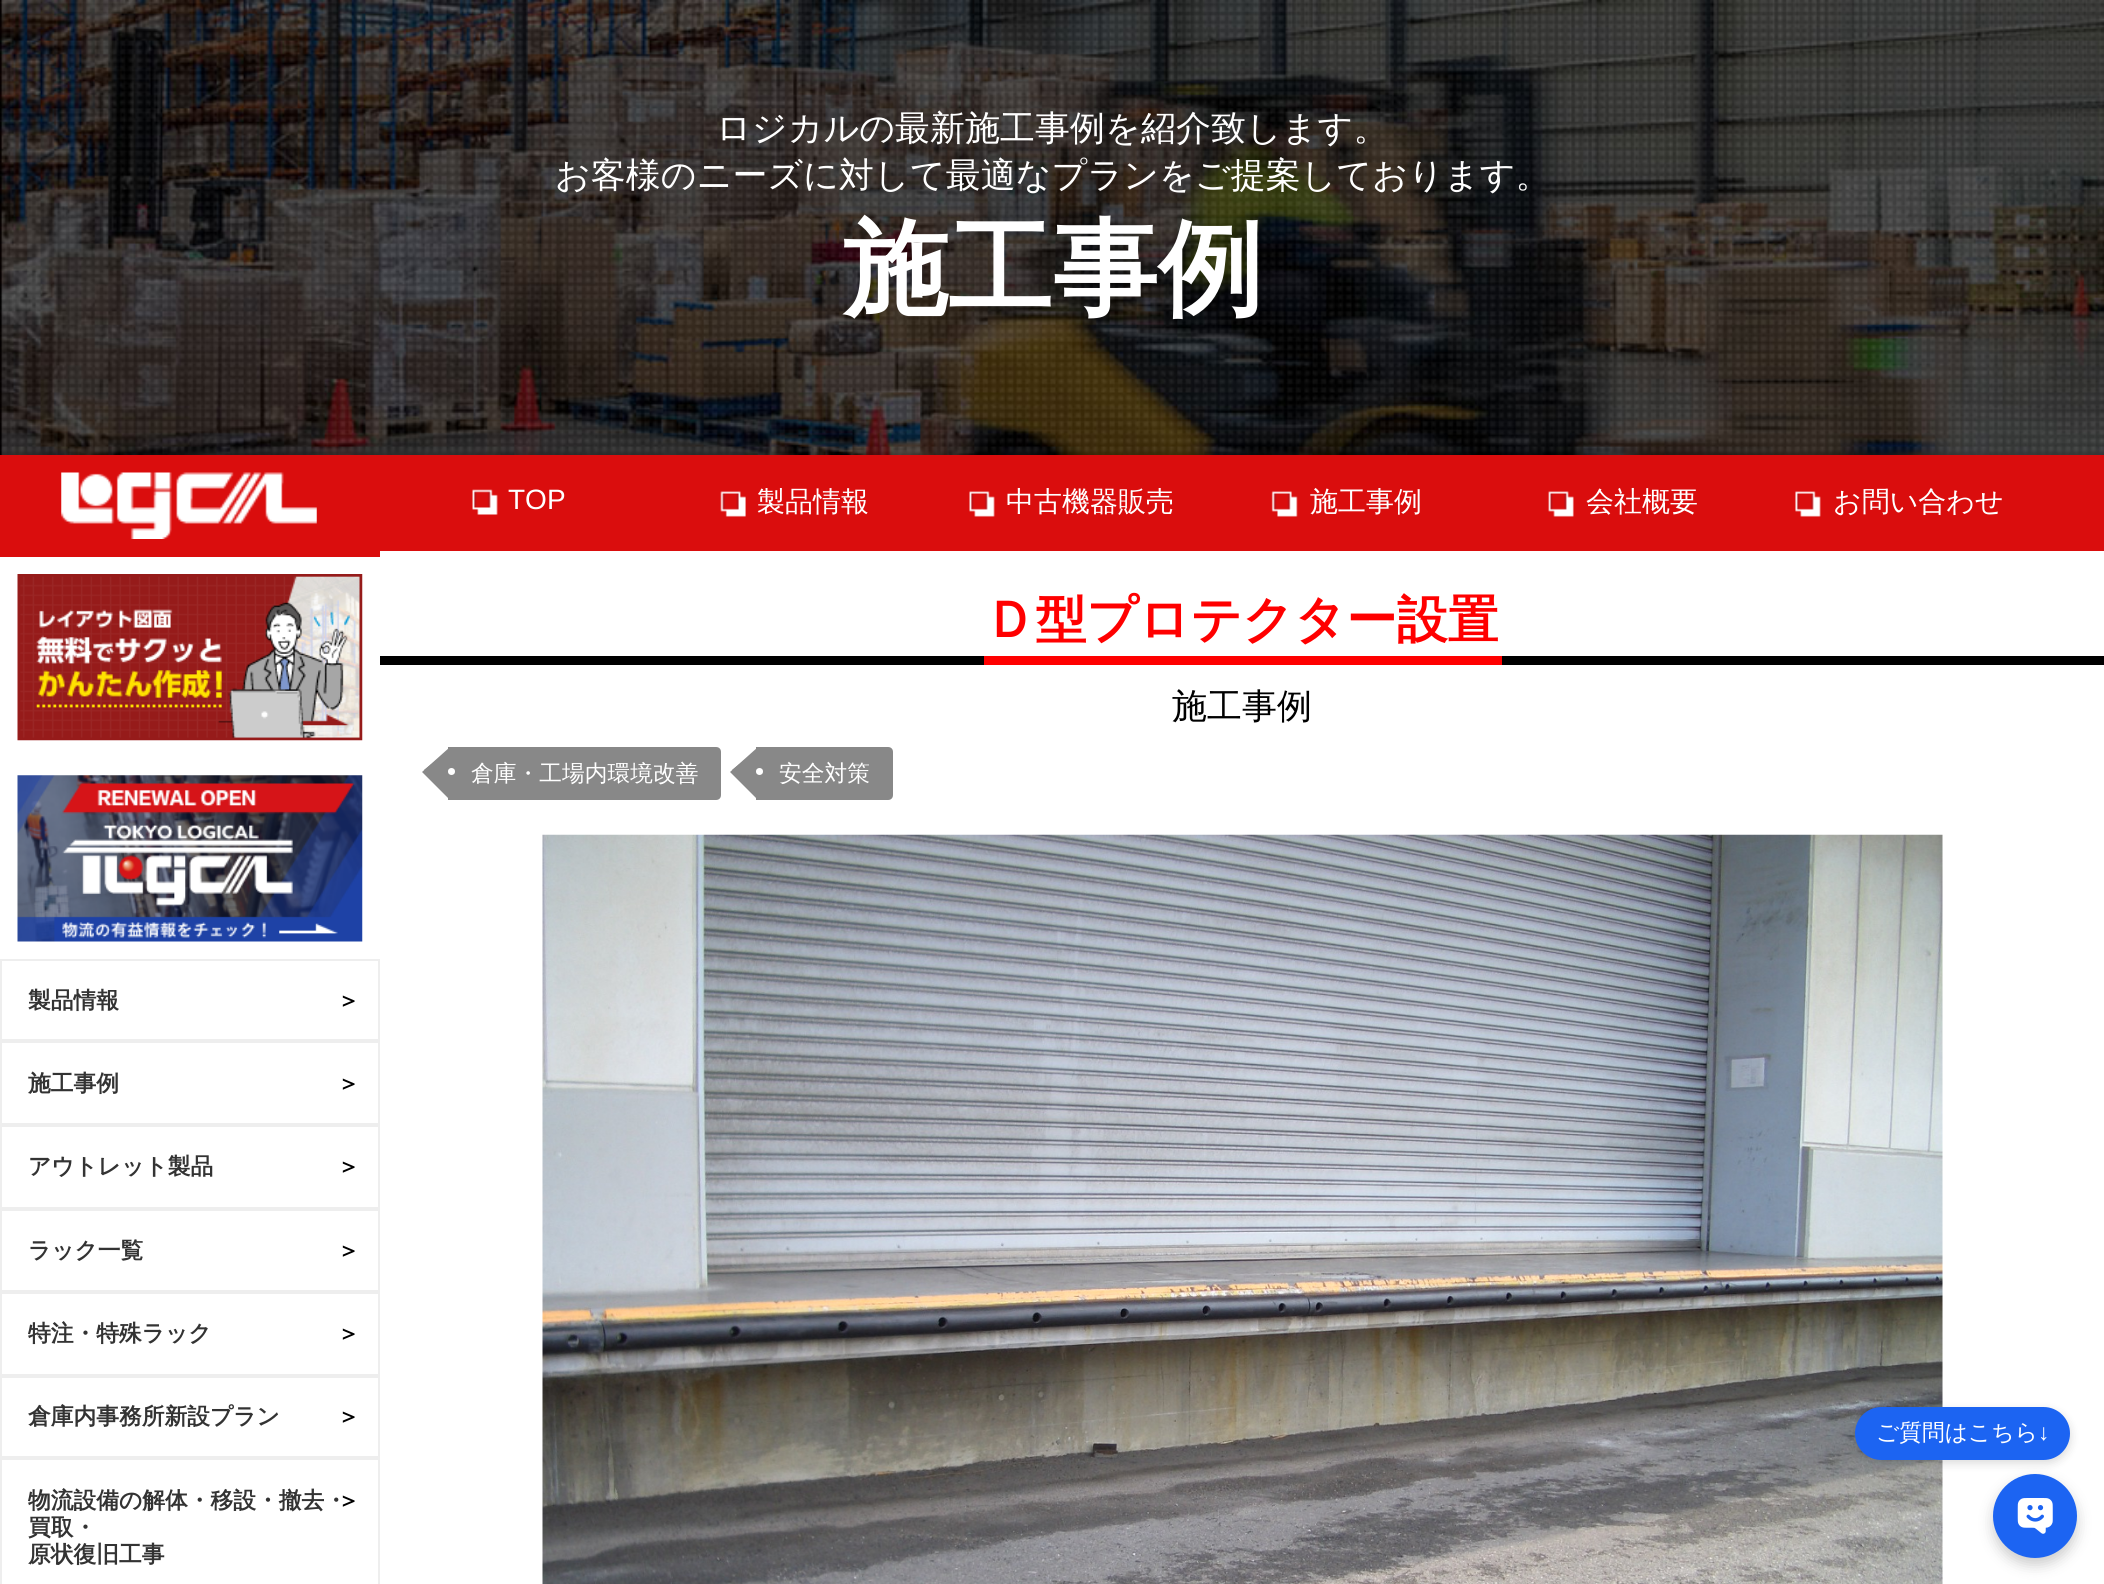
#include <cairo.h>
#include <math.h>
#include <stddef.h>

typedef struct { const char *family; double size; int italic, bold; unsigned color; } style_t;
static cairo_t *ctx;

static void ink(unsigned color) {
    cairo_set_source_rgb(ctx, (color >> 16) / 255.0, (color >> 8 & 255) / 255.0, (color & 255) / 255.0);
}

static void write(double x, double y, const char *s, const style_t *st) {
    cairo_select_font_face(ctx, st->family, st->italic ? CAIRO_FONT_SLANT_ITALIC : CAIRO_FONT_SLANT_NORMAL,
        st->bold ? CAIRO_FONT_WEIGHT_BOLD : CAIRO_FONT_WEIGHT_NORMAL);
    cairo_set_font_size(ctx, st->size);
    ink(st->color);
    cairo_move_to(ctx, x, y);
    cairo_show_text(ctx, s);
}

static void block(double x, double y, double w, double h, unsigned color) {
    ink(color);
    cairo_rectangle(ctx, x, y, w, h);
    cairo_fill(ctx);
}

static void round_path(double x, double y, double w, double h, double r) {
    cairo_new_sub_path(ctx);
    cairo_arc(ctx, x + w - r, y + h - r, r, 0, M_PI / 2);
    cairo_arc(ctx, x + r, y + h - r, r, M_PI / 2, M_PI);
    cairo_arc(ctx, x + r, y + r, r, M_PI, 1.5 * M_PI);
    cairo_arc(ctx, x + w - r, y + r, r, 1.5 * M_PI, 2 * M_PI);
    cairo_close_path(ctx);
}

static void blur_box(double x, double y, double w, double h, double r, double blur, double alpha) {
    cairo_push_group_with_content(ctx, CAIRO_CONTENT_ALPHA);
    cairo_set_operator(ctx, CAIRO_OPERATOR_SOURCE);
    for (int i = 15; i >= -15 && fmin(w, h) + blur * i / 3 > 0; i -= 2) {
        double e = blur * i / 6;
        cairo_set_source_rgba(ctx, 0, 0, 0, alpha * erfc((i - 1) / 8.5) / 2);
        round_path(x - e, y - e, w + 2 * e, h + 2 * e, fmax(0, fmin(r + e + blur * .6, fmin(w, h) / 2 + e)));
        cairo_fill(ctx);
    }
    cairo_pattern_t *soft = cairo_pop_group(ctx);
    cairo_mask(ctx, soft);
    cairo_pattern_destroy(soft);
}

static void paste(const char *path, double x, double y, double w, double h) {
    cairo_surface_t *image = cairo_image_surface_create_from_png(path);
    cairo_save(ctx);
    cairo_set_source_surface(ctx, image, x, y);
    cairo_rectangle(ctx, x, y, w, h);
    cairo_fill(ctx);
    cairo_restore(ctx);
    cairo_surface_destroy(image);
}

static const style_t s1 = {"WenQuanYi Zen Hei Medium", 35, 0, 0, 0xffffff};
static const style_t s2 = {"WenQuanYi Zen Hei", 105, 0, 1, 0xffffff};
static const style_t s3 = {"Liberation Sans", 28, 0, 0, 0xffffff};
static const style_t s4 = {"WenQuanYi Zen Hei Medium", 28, 0, 0, 0xffffff};
static const style_t s5 = {"WenQuanYi Zen Hei", 50.75, 0, 1, 0xff0000};
static const style_t s6 = {"WenQuanYi Zen Hei Medium", 35, 0, 0, 0x000000};
static const style_t s7 = {"WenQuanYi Zen Hei Medium", 22.75, 0, 0, 0xffffff};
static const style_t s8 = {"WenQuanYi Zen Hei", 22.75, 0, 1, 0x333333};
static const style_t s9 = {"WenQuanYi Zen Hei", 22.75, 0, 1, 0x000000};
static const style_t s10 = {"Liberation Sans", 22.75, 0, 0, 0xffffff};

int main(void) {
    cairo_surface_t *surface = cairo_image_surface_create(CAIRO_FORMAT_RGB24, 2104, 1584);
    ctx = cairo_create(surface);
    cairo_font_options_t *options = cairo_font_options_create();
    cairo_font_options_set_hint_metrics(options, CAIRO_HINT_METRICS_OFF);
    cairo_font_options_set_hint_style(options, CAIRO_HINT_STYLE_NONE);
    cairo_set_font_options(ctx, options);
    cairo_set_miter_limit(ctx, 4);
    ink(0xffffff);
    cairo_paint(ctx);
    paste("pic1.png", 0, 0, 2104, 455);
    write(716, 140, "ロジカルの最新施工事例を紹介致します。", &s1);
    write(555, 187, "お客様のニーズに対して最適なプランをご提案しております。", &s1);
    write(843, 305, "施工事例", &s2);
    block(380, 455, 1724, 96, 0xda0d0d);
    paste("pic2.png", 472, 489, 26, 26);
    write(508, 509, "TOP", &s3);
    paste("pic3.png", 720, 491, 26, 26);
    write(757, 511, "製品情報", &s4);
    paste("pic4.png", 969, 491, 26, 26);
    write(1006, 511, "中古機器販売", &s4);
    paste("pic5.png", 1271, 491, 27, 26);
    write(1310, 511, "施工事例", &s4);
    paste("pic6.png", 1548, 491, 26, 26);
    write(1586, 511, "会社概要", &s4);
    paste("pic7.png", 1795, 491, 26, 26);
    write(1833, 511, "お問い合わせ", &s4);
    block(380, 656, 1724, 9, 0x000000);
    write(985, 637, "Ｄ型プロテクター設置", &s5);
    block(984, 656, 518, 9, 0xff0000);
    write(1172, 718, "施工事例", &s6);
    ink(0x888888);
    cairo_new_path(ctx);
    cairo_move_to(ctx, 448, 747);
    cairo_line_to(ctx, 716, 747);
    cairo_curve_to(ctx, 719, 747, 721, 749, 721, 752);
    cairo_line_to(ctx, 721, 795);
    cairo_curve_to(ctx, 721, 798, 719, 800, 716, 800);
    cairo_line_to(ctx, 448, 800);
    cairo_close_path(ctx);
    cairo_fill(ctx);
    cairo_new_path(ctx);
    cairo_move_to(ctx, 450, 747);
    cairo_line_to(ctx, 450, 800);
    cairo_line_to(ctx, 422, 772);
    cairo_close_path(ctx);
    cairo_fill(ctx);
    cairo_new_path(ctx);
    cairo_move_to(ctx, 450, 749);
    cairo_line_to(ctx, 450, 796);
    cairo_line_to(ctx, 424, 770);
    cairo_close_path(ctx);
    cairo_fill(ctx);
    ink(0xffffff);
    cairo_arc(ctx, 451.5, 771.5, 3.5, 0, 2 * M_PI);
    cairo_fill(ctx);
    write(471, 781, "倉庫・工場内環境改善", &s7);
    ink(0x888888);
    cairo_new_path(ctx);
    cairo_move_to(ctx, 756, 747);
    cairo_line_to(ctx, 888, 747);
    cairo_curve_to(ctx, 891, 747, 893, 749, 893, 752);
    cairo_line_to(ctx, 893, 795);
    cairo_curve_to(ctx, 893, 798, 891, 800, 888, 800);
    cairo_line_to(ctx, 756, 800);
    cairo_close_path(ctx);
    cairo_fill(ctx);
    cairo_new_path(ctx);
    cairo_move_to(ctx, 758, 747);
    cairo_line_to(ctx, 758, 800);
    cairo_line_to(ctx, 730, 772);
    cairo_close_path(ctx);
    cairo_fill(ctx);
    cairo_new_path(ctx);
    cairo_move_to(ctx, 758, 749);
    cairo_line_to(ctx, 758, 796);
    cairo_line_to(ctx, 732, 770);
    cairo_close_path(ctx);
    cairo_fill(ctx);
    ink(0xffffff);
    cairo_arc(ctx, 759.5, 771.5, 3.5, 0, 2 * M_PI);
    cairo_fill(ctx);
    write(779, 781, "安全対策", &s7);
    paste("pic8.png", 542, 834, 1401, 750);
    block(0, 455, 380, 102, 0xda0d0d);
    paste("pic9.png", 61, 472, 256, 67);
    paste("pic10.png", 17, 574, 346, 167);
    paste("pic11.png", 17, 775, 346, 167);
    cairo_rectangle(ctx, 1, 960, 378, 80);
    ink(0xeeeeee);
    cairo_stroke(ctx);
    write(28, 1008, "製品情報", &s8);
    write(337, 1008, "＞", &s9);
    cairo_rectangle(ctx, 1, 1042, 378, 82);
    ink(0xeeeeee);
    cairo_stroke(ctx);
    write(28, 1091, "施工事例", &s8);
    write(337, 1091, "＞", &s9);
    cairo_rectangle(ctx, 1, 1126, 378, 82);
    ink(0xeeeeee);
    cairo_stroke(ctx);
    write(28, 1174, "アウトレット製品", &s8);
    write(337, 1174, "＞", &s9);
    cairo_rectangle(ctx, 1, 1210, 378, 81);
    ink(0xeeeeee);
    cairo_stroke(ctx);
    write(28, 1258, "ラック一覧", &s8);
    write(337, 1258, "＞", &s9);
    cairo_rectangle(ctx, 1, 1293, 378, 82);
    ink(0xeeeeee);
    cairo_stroke(ctx);
    write(28, 1341, "特注・特殊ラック", &s8);
    write(337, 1341, "＞", &s9);
    cairo_rectangle(ctx, 1, 1377, 378, 80);
    ink(0xeeeeee);
    cairo_stroke(ctx);
    write(28, 1424, "倉庫内事務所新設プラン", &s8);
    write(337, 1424, "＞", &s9);
    cairo_rectangle(ctx, 1, 1459, 378, 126);
    ink(0xeeeeee);
    cairo_stroke(ctx);
    write(28, 1508, "物流設備の解体・移設・撤去・", &s8);
    write(28, 1535, "買取・", &s8);
    write(28, 1562, "原状復旧工事", &s8);
    write(337, 1508, "＞", &s9);
    ink(0x000000);
    blur_box(1855, 1411, 215, 52, 26, 5, 0.15);
    ink(0x1c64f2);
    round_path(1855, 1407, 215, 53, 26.5);
    cairo_fill(ctx);
    write(1876, 1440, "ご質問はこちら", &s7);
    write(2038, 1440, "↓", &s10);
    ink(0x000000);
    blur_box(1993, 1481, 84, 84, 42, 7, 0.2);
    ink(0x1c64f2);
    cairo_arc(ctx, 2035, 1516, 42, 0, 2 * M_PI);
    cairo_fill(ctx);
    paste("pic12.png", 2017, 1498, 36, 36);
    cairo_surface_write_to_png(surface, "screenshot.png");
    cairo_font_options_destroy(options);
    cairo_destroy(ctx);
    cairo_surface_destroy(surface);
    return 0;
}
